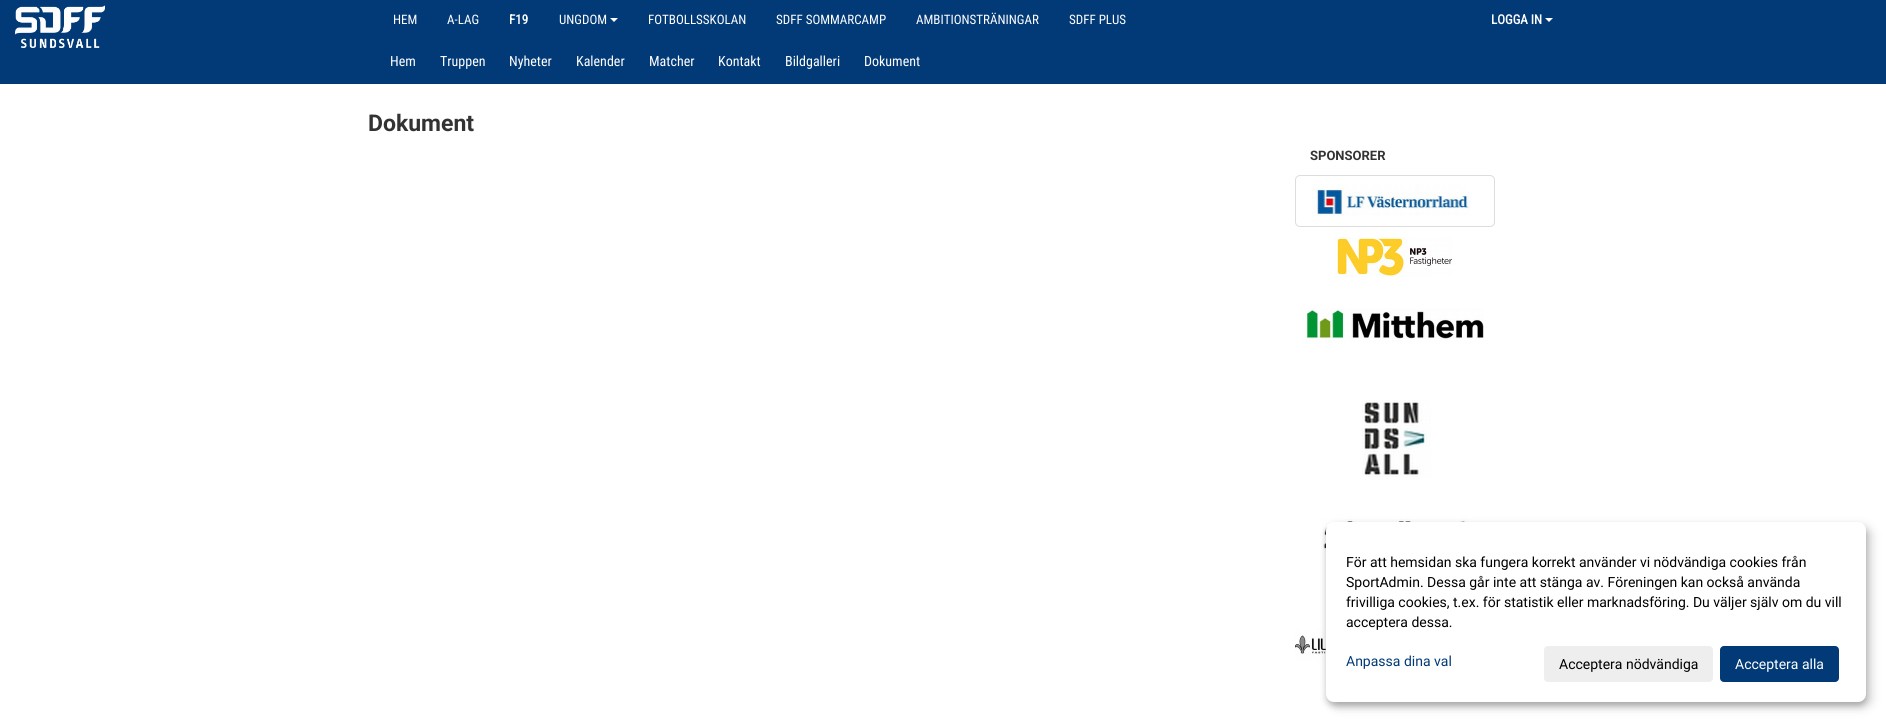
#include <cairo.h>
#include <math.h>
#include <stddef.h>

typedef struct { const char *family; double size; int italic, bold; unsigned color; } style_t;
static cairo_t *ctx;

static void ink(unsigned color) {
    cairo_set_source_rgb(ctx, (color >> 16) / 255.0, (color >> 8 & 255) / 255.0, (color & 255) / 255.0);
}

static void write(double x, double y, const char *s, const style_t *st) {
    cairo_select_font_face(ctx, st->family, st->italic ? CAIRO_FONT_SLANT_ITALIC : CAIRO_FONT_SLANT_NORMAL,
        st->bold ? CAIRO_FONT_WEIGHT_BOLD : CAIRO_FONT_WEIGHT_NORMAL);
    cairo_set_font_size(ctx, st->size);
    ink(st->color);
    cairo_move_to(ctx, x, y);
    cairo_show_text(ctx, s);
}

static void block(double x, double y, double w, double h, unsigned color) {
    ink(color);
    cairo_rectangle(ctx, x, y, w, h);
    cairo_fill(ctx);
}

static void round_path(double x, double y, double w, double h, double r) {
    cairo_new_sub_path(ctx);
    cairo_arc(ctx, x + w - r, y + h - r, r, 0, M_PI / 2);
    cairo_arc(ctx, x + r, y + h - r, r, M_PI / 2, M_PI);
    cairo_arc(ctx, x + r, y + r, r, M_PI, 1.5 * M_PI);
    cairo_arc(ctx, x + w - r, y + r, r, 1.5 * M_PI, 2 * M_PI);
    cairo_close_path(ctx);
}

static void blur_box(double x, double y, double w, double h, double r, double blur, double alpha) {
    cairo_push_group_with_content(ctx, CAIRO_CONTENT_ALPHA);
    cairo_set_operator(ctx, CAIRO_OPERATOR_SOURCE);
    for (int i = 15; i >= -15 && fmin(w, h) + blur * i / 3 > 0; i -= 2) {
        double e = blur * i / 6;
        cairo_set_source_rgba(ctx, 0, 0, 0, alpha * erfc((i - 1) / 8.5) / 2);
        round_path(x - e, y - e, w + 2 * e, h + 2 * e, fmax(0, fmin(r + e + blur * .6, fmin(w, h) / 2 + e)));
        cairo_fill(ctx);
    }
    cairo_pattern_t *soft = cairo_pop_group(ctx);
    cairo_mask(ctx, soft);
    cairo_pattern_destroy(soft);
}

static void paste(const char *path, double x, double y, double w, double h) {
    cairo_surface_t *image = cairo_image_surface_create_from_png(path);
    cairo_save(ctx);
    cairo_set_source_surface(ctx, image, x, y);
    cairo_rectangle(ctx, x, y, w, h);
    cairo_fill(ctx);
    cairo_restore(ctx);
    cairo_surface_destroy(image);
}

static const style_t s1 = {"Roboto Condensed", 13, 0, 0, 0xffffff};
static const style_t s2 = {"Roboto Condensed", 13, 0, 1, 0xffffff};
static const style_t s3 = {"Roboto Condensed", 14, 0, 0, 0xffffff};
static const style_t s4 = {"Roboto", 23, 0, 1, 0x333333};
static const style_t s5 = {"Roboto", 13, 0, 1, 0x333333};
static const style_t s6 = {"Roboto", 14, 0, 0, 0x000000};
static const style_t s7 = {"Roboto", 14, 0, 0, 0x023a77};
static const style_t s8 = {"Roboto", 14, 0, 0, 0xffffff};

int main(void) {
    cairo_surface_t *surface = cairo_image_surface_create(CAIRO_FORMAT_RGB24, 1886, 722);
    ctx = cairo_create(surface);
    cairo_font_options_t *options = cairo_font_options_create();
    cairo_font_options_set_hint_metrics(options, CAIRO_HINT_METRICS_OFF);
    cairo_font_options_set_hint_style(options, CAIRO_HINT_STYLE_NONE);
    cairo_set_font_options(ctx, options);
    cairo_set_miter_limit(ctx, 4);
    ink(0xffffff);
    cairo_paint(ctx);
    block(0, 0, 1886, 84, 0x023a77);
    paste("pic1.png", 15, 5, 90, 43);
    write(393, 24, "HEM", &s1);
    write(447, 24, "A-LAG", &s1);
    write(509, 24, "F19", &s2);
    write(559, 24, "UNGDOM", &s1);
    cairo_new_path(ctx);
    cairo_move_to(ctx, 610, 18);
    cairo_line_to(ctx, 618, 18);
    cairo_line_to(ctx, 614, 22);
    cairo_close_path(ctx);
    cairo_fill(ctx);
    write(648, 24, "FOTBOLLSSKOLAN", &s1);
    write(776, 24, "SDFF SOMMARCAMP", &s1);
    write(916, 24, "AMBITIONSTRÄNINGAR", &s1);
    write(1069, 24, "SDFF PLUS", &s1);
    write(1491, 24, "LOGGA IN", &s2);
    cairo_new_path(ctx);
    cairo_move_to(ctx, 1545, 18);
    cairo_line_to(ctx, 1553, 18);
    cairo_line_to(ctx, 1549, 22);
    cairo_close_path(ctx);
    cairo_fill(ctx);
    write(390, 66, "Hem", &s3);
    write(440, 66, "Truppen", &s3);
    write(509, 66, "Nyheter", &s3);
    write(576, 66, "Kalender", &s3);
    write(649, 66, "Matcher", &s3);
    write(718, 66, "Kontakt", &s3);
    write(785, 66, "Bildgalleri", &s3);
    write(864, 66, "Dokument", &s3);
    write(368, 131, "Dokument", &s4);
    write(1310, 160, "SPONSORER", &s5);
    round_path(1295.5, 175.5, 199, 51, 4.5);
    ink(0xdddddd);
    cairo_set_line_width(ctx, 1);
    cairo_stroke(ctx);
    paste("pic2.png", 1312, 184, 159, 32);
    paste("pic3.png", 1335, 237, 119, 40);
    paste("pic4.png", 1303, 308, 181, 35);
    paste("pic5.png", 1362, 400, 69, 77);
    paste("pic6.png", 1323, 519, 145, 31);
    paste("pic7.png", 1295, 628, 31, 35);
    ink(0x000000);
    blur_box(1331, 527, 540, 180, 8, 5, 0.19);
    blur_box(1326, 526, 540, 180, 8, 3, 0.2);
    ink(0xffffff);
    round_path(1326, 522, 540, 180, 8);
    cairo_fill(ctx);
    write(1346, 567, "För att hemsidan ska fungera korrekt använder vi nödvändiga cookies från", &s6);
    write(1346, 587, "SportAdmin. Dessa går inte att stänga av. Föreningen kan också använda", &s6);
    write(1346, 607, "frivilliga cookies, t.ex. för statistik eller marknadsföring. Du väljer själv om du vill", &s6);
    write(1346, 627, "acceptera dessa.", &s6);
    write(1346, 666, "Anpassa dina val", &s7);
    ink(0xeeeeee);
    round_path(1544, 646, 169, 36, 4);
    cairo_fill(ctx);
    write(1559, 669, "Acceptera nödvändiga", &s6);
    ink(0x023a77);
    round_path(1720, 646, 119, 36, 4);
    cairo_fill(ctx);
    write(1735, 669, "Acceptera alla", &s8);
    cairo_surface_write_to_png(surface, "screenshot.png");
    cairo_font_options_destroy(options);
    cairo_destroy(ctx);
    cairo_surface_destroy(surface);
    return 0;
}
